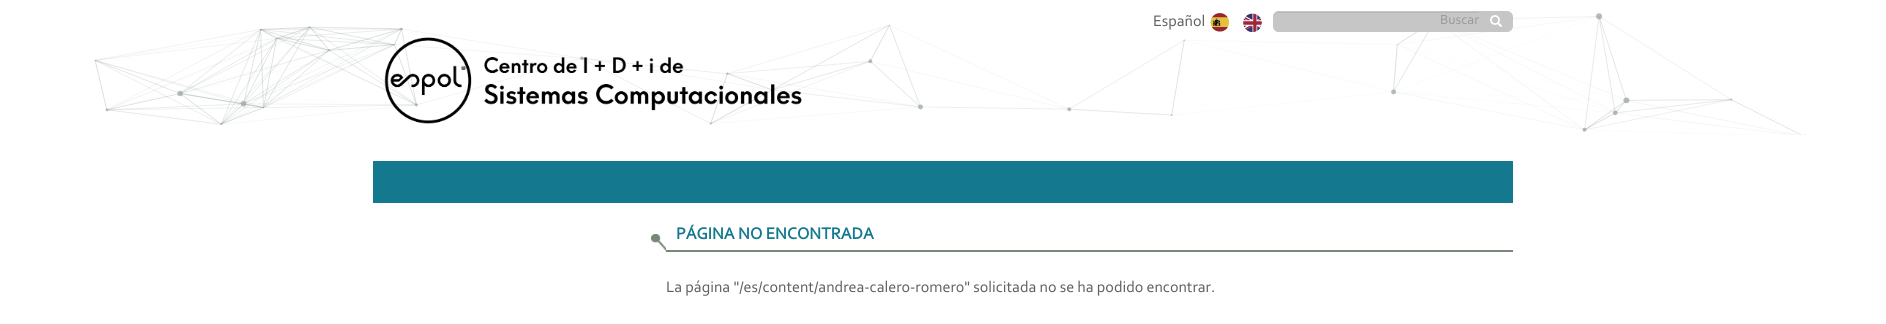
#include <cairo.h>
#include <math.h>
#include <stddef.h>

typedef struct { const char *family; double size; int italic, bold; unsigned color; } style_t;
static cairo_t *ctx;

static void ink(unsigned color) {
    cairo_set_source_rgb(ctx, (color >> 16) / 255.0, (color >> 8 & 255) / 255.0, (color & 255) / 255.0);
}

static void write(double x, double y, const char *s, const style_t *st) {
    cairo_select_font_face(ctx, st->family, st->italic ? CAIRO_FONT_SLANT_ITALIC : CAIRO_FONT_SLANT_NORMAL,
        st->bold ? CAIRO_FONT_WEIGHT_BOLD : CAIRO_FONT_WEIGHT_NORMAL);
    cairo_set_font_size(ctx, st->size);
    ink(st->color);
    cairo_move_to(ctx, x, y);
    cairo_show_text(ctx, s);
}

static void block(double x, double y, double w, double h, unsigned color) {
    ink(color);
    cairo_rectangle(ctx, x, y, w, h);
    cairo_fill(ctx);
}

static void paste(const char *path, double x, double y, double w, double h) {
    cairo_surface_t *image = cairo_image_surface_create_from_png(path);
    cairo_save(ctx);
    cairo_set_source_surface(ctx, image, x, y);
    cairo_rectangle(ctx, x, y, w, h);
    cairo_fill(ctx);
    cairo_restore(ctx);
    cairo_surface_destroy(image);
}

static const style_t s1 = {"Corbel", 16, 0, 0, 0x5e5f61};
static const style_t s2 = {"Corbel", 14, 0, 0, 0x999999};
static const style_t s3 = {"Corbel", 17, 0, 1, 0x14788e};

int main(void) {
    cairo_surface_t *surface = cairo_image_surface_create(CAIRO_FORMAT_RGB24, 1886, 324);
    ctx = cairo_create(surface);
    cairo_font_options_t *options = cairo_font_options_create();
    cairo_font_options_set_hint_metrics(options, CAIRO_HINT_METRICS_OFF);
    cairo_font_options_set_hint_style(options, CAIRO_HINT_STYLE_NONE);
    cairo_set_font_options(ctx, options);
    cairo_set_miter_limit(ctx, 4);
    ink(0xffffff);
    cairo_paint(ctx);
    paste("pic1.png", 94, 13, 1711, 122);
    write(1153, 26, "Español", &s1);
    paste("pic2.png", 1210, 13, 19, 19);
    paste("pic3.png", 1243, 13, 19, 19);
    ink(0xc6c6c6);
    cairo_new_path(ctx);
    cairo_move_to(ctx, 1279, 11);
    cairo_line_to(ctx, 1480, 11);
    cairo_line_to(ctx, 1480, 32);
    cairo_line_to(ctx, 1279, 32);
    cairo_curve_to(ctx, 1275.5, 32, 1273, 29.5, 1273, 26);
    cairo_line_to(ctx, 1273, 17);
    cairo_curve_to(ctx, 1273, 13.5, 1275.5, 11, 1279, 11);
    cairo_close_path(ctx);
    cairo_fill(ctx);
    ink(0xb7b7b7);
    cairo_new_path(ctx);
    cairo_move_to(ctx, 1279, 13);
    cairo_line_to(ctx, 1479, 13);
    cairo_line_to(ctx, 1479, 12);
    cairo_line_to(ctx, 1278, 12);
    cairo_curve_to(ctx, 1275, 13, 1274, 15, 1274, 18);
    cairo_curve_to(ctx, 1274, 15, 1276, 13, 1279, 13);
    cairo_close_path(ctx);
    cairo_fill(ctx);
    cairo_new_path(ctx);
    cairo_move_to(ctx, 1279, 11.5);
    cairo_line_to(ctx, 1479.5, 11.5);
    cairo_line_to(ctx, 1479.5, 31.5);
    cairo_line_to(ctx, 1279, 31.5);
    cairo_curve_to(ctx, 1276, 31.5, 1273.5, 29, 1273.5, 26);
    cairo_line_to(ctx, 1273.5, 17);
    cairo_curve_to(ctx, 1273.5, 14, 1276, 11.5, 1279, 11.5);
    cairo_close_path(ctx);
    ink(0xc6c6c6);
    cairo_set_line_width(ctx, 1);
    cairo_stroke(ctx);
    write(1440, 24, "Buscar", &s2);
    ink(0xc6c6c6);
    cairo_new_path(ctx);
    cairo_move_to(ctx, 1479.5, 11.5);
    cairo_line_to(ctx, 1507, 11.5);
    cairo_curve_to(ctx, 1510, 11.5, 1512.5, 14, 1512.5, 17);
    cairo_line_to(ctx, 1512.5, 26);
    cairo_curve_to(ctx, 1512.5, 29, 1510, 31.5, 1507, 31.5);
    cairo_line_to(ctx, 1479.5, 31.5);
    cairo_close_path(ctx);
    cairo_fill_preserve(ctx);
    cairo_stroke(ctx);
    paste("pic4.png", 1490, 15, 12, 12);
    paste("pic5.png", 384, 37, 418, 87);
    block(373, 161, 1140, 42, 0x14788e);
    block(666, 250, 847, 2, 0x788778);
    write(676, 239, "PÁGINA NO ENCONTRADA", &s3);
    paste("pic6.png", 651, 234, 15, 18);
    write(666, 292, "La página \"/es/content/andrea-calero-romero\" solicitada no se ha podido encontrar.", &s1);
    cairo_surface_write_to_png(surface, "screenshot.png");
    cairo_font_options_destroy(options);
    cairo_destroy(ctx);
    cairo_surface_destroy(surface);
    return 0;
}
